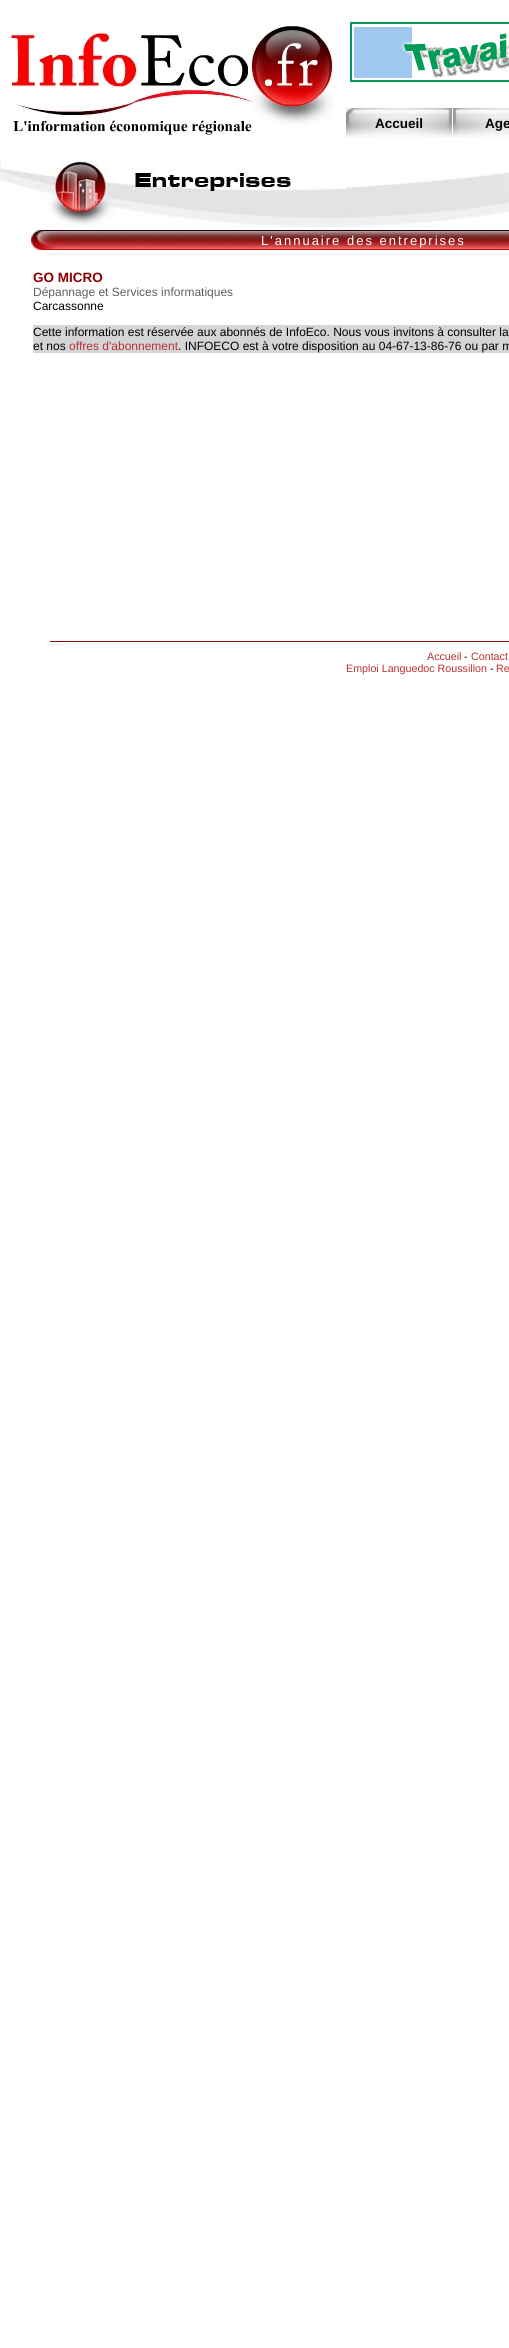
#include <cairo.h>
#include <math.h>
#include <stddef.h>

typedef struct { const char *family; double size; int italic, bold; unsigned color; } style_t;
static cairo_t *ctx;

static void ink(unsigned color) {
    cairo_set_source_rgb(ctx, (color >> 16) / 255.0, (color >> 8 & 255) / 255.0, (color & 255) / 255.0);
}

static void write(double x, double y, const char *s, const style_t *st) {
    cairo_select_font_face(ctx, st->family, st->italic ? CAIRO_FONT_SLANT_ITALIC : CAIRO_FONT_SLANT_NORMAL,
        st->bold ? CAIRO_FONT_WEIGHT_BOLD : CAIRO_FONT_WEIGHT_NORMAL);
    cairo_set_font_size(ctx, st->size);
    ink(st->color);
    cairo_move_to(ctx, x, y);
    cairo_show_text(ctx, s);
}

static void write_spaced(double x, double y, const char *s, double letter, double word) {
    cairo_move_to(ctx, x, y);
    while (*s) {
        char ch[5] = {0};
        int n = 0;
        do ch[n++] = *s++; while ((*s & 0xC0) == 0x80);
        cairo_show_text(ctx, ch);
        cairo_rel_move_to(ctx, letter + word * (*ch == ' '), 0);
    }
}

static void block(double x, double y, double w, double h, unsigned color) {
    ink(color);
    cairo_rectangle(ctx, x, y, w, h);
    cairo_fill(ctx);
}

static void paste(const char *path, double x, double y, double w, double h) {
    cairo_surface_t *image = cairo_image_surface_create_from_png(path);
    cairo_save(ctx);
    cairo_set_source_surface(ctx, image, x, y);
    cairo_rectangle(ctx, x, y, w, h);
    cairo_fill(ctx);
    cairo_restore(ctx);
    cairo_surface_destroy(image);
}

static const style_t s1 = {"Liberation Sans", 13.5, 0, 1, 0x000000};
static const style_t s2 = {"Liberation Sans", 13.5, 0, 1, 0x8c0000};
static const style_t s3 = {"Liberation Sans", 12, 0, 0, 0x5f6061};
static const style_t s4 = {"Liberation Sans", 12, 0, 0, 0x000000};
static const style_t s5 = {"Liberation Sans", 12, 0, 0, 0xba3030};
static const style_t s6 = {"Liberation Sans", 10.7, 0, 0, 0xba3030};
static const style_t s7 = {"Liberation Sans", 10.7, 0, 0, 0x000000};

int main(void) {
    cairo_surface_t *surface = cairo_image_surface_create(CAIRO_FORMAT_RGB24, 509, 2348);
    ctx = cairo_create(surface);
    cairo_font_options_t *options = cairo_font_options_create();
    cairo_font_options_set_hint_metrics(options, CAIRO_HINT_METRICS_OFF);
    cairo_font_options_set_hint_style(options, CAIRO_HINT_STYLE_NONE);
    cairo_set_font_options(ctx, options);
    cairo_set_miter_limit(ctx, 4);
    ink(0xffffff);
    cairo_paint(ctx);
    paste("pic1.png", 10, 26, 324, 109);
    paste("pic2.png", 350, 22, 159, 60);
    paste("pic3.png", 346, 108, 106, 30);
    write(375, 128, "Accueil", &s1);
    paste("pic4.png", 453, 108, 56, 30);
    write(485, 128, "Age", &s1);
    paste("pic5.png", 0, 159, 53, 53);
    paste("pic6.png", 53, 159, 55, 66);
    paste("pic7.png", 108, 167, 238, 60);
    paste("pic8.png", 346, 172, 163, 55);
    paste("pic9.png", 31, 230, 478, 20);
    cairo_select_font_face(ctx, "Liberation Sans", CAIRO_FONT_SLANT_NORMAL, CAIRO_FONT_WEIGHT_NORMAL);
    cairo_set_font_size(ctx, 13);
    ink(0xffffff);
    write_spaced(261, 245, "L'annuaire des entreprises", 2, 0);
    write(33, 282, "GO MICRO", &s2);
    write(33, 296, "Dépannage et Services informatiques", &s3);
    write(33, 310, "Carcassonne", &s4);
    block(33, 325, 476, 28, 0xd4d5d7);
    write(33, 336, "Cette information est réservée aux abonnés de InfoEco. Nous vous invitons à consulter la", &s4);
    write(33, 350, "et nos", &s4);
    write(69, 350, "offres d'abonnement", &s5);
    write(178, 350, ". INFOECO est à votre disposition au 04-67-13-86-76 ou par m", &s4);
    block(50, 641, 459, 1, 0x8c0000);
    write(427, 660, "Accueil", &s6);
    write(464, 660, "-", &s7);
    write(471, 660, "Contact", &s6);
    write(346, 672, "Emploi Languedoc Roussillon", &s6);
    write(490, 672, "-", &s7);
    write(496, 672, "Re", &s6);
    cairo_surface_write_to_png(surface, "screenshot.png");
    cairo_font_options_destroy(options);
    cairo_destroy(ctx);
    cairo_surface_destroy(surface);
    return 0;
}
